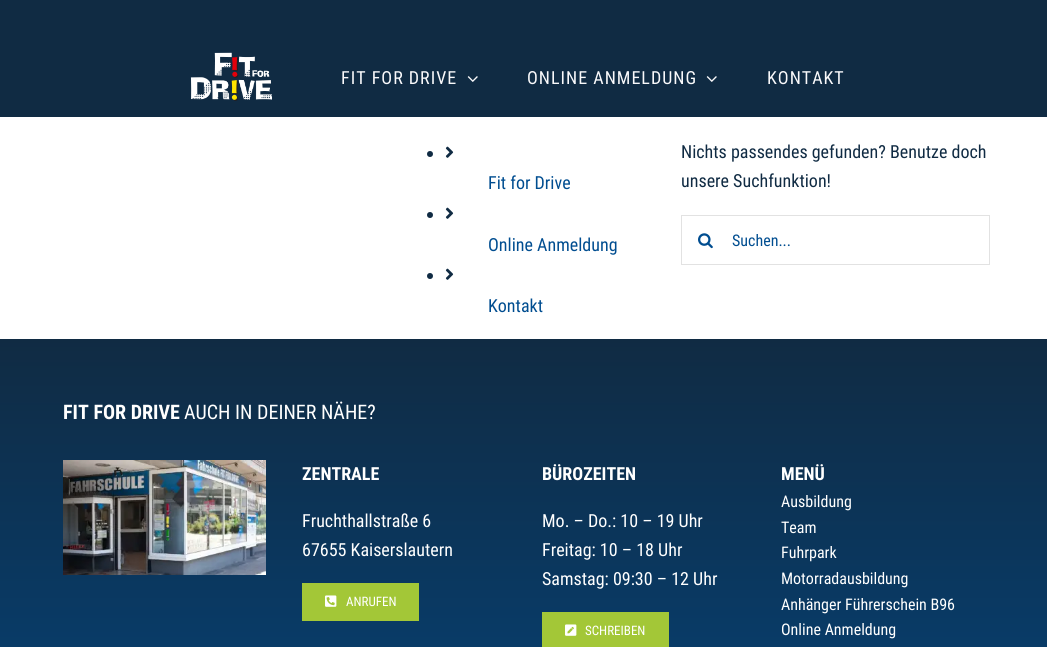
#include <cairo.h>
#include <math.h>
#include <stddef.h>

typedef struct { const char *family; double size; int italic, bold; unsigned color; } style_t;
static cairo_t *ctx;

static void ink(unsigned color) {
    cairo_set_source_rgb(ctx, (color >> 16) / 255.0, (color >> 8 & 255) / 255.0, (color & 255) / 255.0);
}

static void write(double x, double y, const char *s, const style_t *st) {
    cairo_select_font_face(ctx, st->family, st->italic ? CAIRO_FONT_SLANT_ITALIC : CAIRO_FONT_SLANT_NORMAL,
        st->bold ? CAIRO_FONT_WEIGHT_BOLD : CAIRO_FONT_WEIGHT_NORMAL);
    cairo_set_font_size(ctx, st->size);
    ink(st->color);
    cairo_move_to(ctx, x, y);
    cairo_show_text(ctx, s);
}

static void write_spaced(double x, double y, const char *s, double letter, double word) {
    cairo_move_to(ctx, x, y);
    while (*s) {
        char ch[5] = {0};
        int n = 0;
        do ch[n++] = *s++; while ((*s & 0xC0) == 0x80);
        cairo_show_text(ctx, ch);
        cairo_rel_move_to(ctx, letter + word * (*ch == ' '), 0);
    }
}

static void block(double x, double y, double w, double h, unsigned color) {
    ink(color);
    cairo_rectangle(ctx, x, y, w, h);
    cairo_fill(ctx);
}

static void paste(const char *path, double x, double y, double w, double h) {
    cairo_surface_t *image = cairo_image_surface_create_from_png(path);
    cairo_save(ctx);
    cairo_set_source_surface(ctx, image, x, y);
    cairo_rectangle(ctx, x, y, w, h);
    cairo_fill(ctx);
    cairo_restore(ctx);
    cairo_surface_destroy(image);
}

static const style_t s1 = {"Roboto Condensed", 18, 0, 0, 0x004d90};
static const style_t s2 = {"Roboto Condensed", 18, 0, 0, 0x102b43};
static const style_t s3 = {"Roboto Condensed", 16, 0, 0, 0x004d90};
static const style_t s4 = {"Roboto Condensed", 20, 0, 1, 0xffffff};
static const style_t s5 = {"Roboto Condensed", 20, 0, 0, 0xffffff};
static const style_t s6 = {"Roboto Condensed", 18, 0, 1, 0xffffff};
static const style_t s7 = {"Roboto Condensed", 18, 0, 0, 0xffffff};
static const style_t s8 = {"Roboto Condensed", 13, 0, 0, 0xffffff};
static const style_t s9 = {"Roboto Condensed", 16, 0, 0, 0xffffff};

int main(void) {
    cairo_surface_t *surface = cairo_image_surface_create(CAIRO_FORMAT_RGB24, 1047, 647);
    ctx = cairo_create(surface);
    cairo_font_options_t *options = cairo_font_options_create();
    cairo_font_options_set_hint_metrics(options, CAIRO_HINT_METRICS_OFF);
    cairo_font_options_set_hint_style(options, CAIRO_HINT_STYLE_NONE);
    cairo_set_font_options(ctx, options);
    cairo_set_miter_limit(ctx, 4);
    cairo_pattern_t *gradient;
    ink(0xffffff);
    cairo_paint(ctx);
    block(0, 0, 1047, 117, 0x102b43);
    paste("pic1.png", 190, 52, 82, 49);
    cairo_select_font_face(ctx, "Roboto Condensed", CAIRO_FONT_SLANT_NORMAL, CAIRO_FONT_WEIGHT_NORMAL);
    cairo_set_font_size(ctx, 18);
    ink(0xf9f9fb);
    write_spaced(341, 84, "FIT FOR DRIVE", 1, 0);
    paste("pic2.png", 467, 76, 11, 6);
    write_spaced(527, 84, "ONLINE ANMELDUNG", 1, 0);
    paste("pic2.png", 706, 76, 11, 6);
    write_spaced(767, 84, "KONTAKT", 1, 0);
    ink(0x102b43);
    cairo_new_path(ctx);
    cairo_arc(ctx, 430, 154, 3, 0, 2 * M_PI);
    cairo_fill(ctx);
    paste("pic3.png", 445, 146, 9, 12);
    write(488, 189, "Fit for Drive", &s1);
    ink(0x102b43);
    cairo_new_path(ctx);
    cairo_arc(ctx, 430, 215, 3, 0, 2 * M_PI);
    cairo_fill(ctx);
    paste("pic3.png", 445, 207, 9, 12);
    write(488, 251, "Online Anmeldung", &s1);
    ink(0x102b43);
    cairo_new_path(ctx);
    cairo_arc(ctx, 430, 276, 3, 0, 2 * M_PI);
    cairo_fill(ctx);
    paste("pic3.png", 445, 268, 9, 12);
    write(488, 312, "Kontakt", &s1);
    write(681, 158, "Nichts passendes gefunden? Benutze doch", &s2);
    write(681, 187, "unsere Suchfunktion!", &s2);
    cairo_rectangle(ctx, 681.5, 215.5, 308, 49);
    ink(0xe2e2e2);
    cairo_set_line_width(ctx, 1);
    cairo_stroke(ctx);
    paste("pic4.png", 698, 233, 15, 16);
    write(732, 246, "Suchen...", &s3);
    gradient = cairo_pattern_create_linear(524, 339, 524, 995);
    cairo_pattern_add_color_stop_rgba(gradient, 0, 0.063, 0.169, 0.263, 1);
    cairo_pattern_add_color_stop_rgba(gradient, 1, 0, 0.302, 0.565, 1);
    cairo_set_source(ctx, gradient);
    cairo_pattern_destroy(gradient);
    cairo_rectangle(ctx, 0, 339, 1047, 308);
    cairo_fill(ctx);
    write(63, 419, "FIT FOR DRIVE", &s4);
    write(184, 419, "AUCH IN DEINER NÄHE?", &s5);
    paste("pic5.png", 63, 460, 203, 115);
    write(302, 480, "ZENTRALE", &s6);
    write(302, 527, "Fruchthallstraße 6", &s7);
    write(302, 556, "67655 Kaiserslautern", &s7);
    block(302, 583, 117, 38, 0xa3c737);
    paste("pic6.png", 325, 595, 12, 12);
    write(346, 606, "ANRUFEN", &s8);
    write(542, 480, "BÜROZEITEN", &s6);
    write(542, 527, "Mo. – Do.: 10 – 19 Uhr", &s7);
    write(542, 556, "Freitag: 10 – 18 Uhr", &s7);
    write(542, 585, "Samstag: 09:30 – 12 Uhr", &s7);
    block(542, 612, 127, 35, 0xa3c737);
    paste("pic7.png", 565, 624, 12, 12);
    write(585, 635, "SCHREIBEN", &s8);
    write(781, 480, "MENÜ", &s6);
    write(781, 507, "Ausbildung", &s9);
    write(781, 533, "Team", &s9);
    write(781, 558, "Fuhrpark", &s9);
    write(781, 584, "Motorradausbildung", &s9);
    write(781, 610, "Anhänger Führerschein B96", &s9);
    write(781, 635, "Online Anmeldung", &s9);
    cairo_surface_write_to_png(surface, "screenshot.png");
    cairo_font_options_destroy(options);
    cairo_destroy(ctx);
    cairo_surface_destroy(surface);
    return 0;
}
